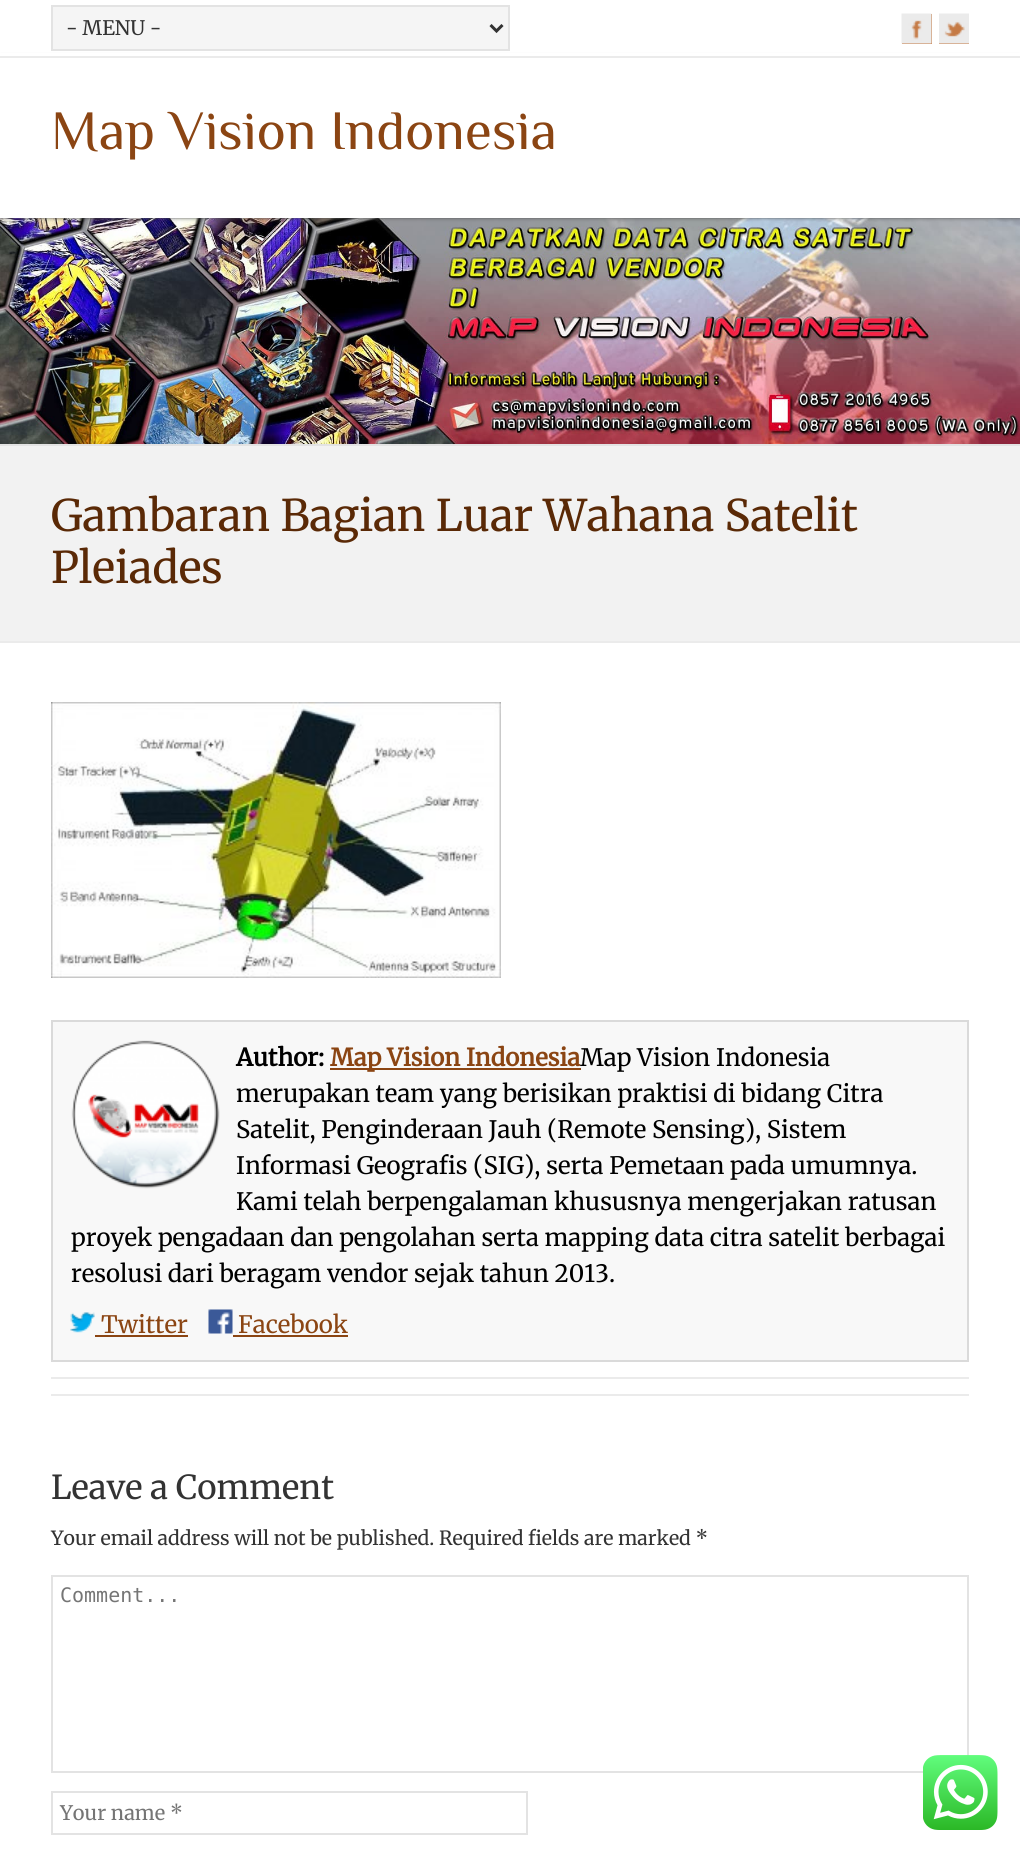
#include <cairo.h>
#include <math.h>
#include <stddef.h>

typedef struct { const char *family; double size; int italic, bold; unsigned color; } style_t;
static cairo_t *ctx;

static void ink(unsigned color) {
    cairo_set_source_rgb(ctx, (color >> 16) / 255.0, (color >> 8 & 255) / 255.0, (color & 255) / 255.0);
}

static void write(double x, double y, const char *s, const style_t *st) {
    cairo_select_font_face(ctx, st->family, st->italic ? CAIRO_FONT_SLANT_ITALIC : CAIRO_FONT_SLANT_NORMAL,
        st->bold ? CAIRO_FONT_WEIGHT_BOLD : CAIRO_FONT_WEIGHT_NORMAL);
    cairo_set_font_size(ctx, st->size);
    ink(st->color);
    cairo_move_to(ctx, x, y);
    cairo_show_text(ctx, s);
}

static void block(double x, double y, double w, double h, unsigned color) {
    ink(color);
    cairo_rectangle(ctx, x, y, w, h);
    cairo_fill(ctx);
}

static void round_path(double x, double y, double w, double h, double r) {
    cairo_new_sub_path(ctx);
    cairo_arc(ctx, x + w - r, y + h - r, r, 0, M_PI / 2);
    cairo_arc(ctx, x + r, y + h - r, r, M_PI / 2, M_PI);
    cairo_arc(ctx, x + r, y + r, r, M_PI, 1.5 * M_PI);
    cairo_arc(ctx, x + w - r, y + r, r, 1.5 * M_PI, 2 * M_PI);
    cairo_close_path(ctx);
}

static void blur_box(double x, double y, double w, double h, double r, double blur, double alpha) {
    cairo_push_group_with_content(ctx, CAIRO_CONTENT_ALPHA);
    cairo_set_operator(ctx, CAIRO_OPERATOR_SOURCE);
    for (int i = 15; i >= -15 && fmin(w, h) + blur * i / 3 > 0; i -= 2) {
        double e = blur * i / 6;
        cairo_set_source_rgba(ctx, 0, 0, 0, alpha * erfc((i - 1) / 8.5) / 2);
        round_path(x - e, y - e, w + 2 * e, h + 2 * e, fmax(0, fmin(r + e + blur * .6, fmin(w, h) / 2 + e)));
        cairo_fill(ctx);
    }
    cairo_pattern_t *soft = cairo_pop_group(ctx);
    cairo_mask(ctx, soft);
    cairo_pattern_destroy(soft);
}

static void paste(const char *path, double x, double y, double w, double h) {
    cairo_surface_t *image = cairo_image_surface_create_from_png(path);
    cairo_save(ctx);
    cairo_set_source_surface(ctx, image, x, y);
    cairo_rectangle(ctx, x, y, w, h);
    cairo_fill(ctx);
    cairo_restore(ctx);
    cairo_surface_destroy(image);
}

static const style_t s1 = {"Merriweather Light", 20, 0, 0, 0x333333};
static const style_t s2 = {"Philosopher", 55.5, 0, 0, 0x8b4513};
static const style_t s3 = {"Merriweather Light", 43.5, 0, 0, 0x5a2906};
static const style_t s4 = {"Merriweather", 24, 0, 1, 0x000000};
static const style_t s5 = {"Merriweather", 24, 0, 1, 0x8b4513};
static const style_t s6 = {"Merriweather Light", 24, 0, 0, 0x000000};
static const style_t s7 = {"Merriweather Light", 24, 0, 0, 0x8b4513};
static const style_t s8 = {"Merriweather Light", 33, 0, 0, 0x333333};
static const style_t s9 = {"Merriweather Light", 19.5, 0, 0, 0x333333};
static const style_t s10 = {"DejaVu Sans Mono", 20, 0, 0, 0x757575};
static const style_t s11 = {"Merriweather Light", 20, 0, 0, 0x757575};

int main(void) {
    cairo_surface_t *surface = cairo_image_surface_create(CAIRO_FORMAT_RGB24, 1020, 1852);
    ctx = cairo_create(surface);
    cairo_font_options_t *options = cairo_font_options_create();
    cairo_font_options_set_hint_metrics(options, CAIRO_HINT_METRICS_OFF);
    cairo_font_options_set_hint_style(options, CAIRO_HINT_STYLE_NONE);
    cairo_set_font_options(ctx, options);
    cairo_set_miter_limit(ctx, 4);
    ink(0xffffff);
    cairo_paint(ctx);
    paste("pic3.png", 0, 218, 1020, 226);
    ink(0x555555);
    blur_box(0, 57, 1020, 161, 0, 2, 1);
    block(0, 53, 1020, 3, 0xffffff);
    block(0, 56, 1020, 2, 0xebebeb);
    ink(0xf5f5f5);
    cairo_rectangle(ctx, 52, 6, 457, 44);
    cairo_fill_preserve(ctx);
    ink(0xe3e3e3);
    cairo_stroke(ctx);
    cairo_new_path(ctx);
    cairo_move_to(ctx, 490.5, 25);
    cairo_line_to(ctx, 496.5, 31);
    cairo_line_to(ctx, 502.5, 25);
    ink(0x333333);
    cairo_set_line_width(ctx, 3);
    cairo_stroke(ctx);
    write(66, 35, "- MENU -", &s1);
    block(902, 14, 30, 30, 0xc57a45);
    paste("pic1.png", 901, 13, 31, 31);
    block(939, 20, 30, 24, 0xc57a45);
    paste("pic2.png", 939, 13, 30, 31);
    block(0, 58, 1020, 160, 0xffffff);
    write(51, 149, "Map Vision Indonesia", &s2);
    block(0, 444, 1020, 2, 0xe3e3e3);
    block(0, 446, 1020, 195, 0xf2f2f2);
    block(0, 641, 1020, 2, 0xebebeb);
    write(51, 531, "Gambaran Bagian Luar Wahana Satelit", &s3);
    write(51, 583, "Pleiades", &s3);
    paste("pic4.png", 51, 702, 450, 276);
    ink(0xf8f8f8);
    cairo_rectangle(ctx, 52, 1021, 916, 340);
    cairo_fill_preserve(ctx);
    ink(0xdadada);
    cairo_set_line_width(ctx, 2);
    cairo_stroke(ctx);
    paste("pic5.png", 71, 1040, 149, 149);
    write(236, 1066, "Author:", &s4);
    block(330, 1068, 251, 2, 0x8b4513);
    write(330, 1066, "Map Vision Indonesia", &s5);
    write(580, 1066, "Map Vision Indonesia", &s6);
    write(236, 1102, "merupakan team yang berisikan praktisi di bidang Citra", &s6);
    write(236, 1138, "Satelit, Penginderaan Jauh (Remote Sensing), Sistem", &s6);
    write(236, 1174, "Informasi Geografis (SIG), serta Pemetaan pada umumnya.", &s6);
    write(236, 1210, "Kami telah berpengalaman khususnya mengerjakan ratusan", &s6);
    write(71, 1246, "proyek pengadaan dan pengolahan serta mapping data citra satelit berbagai", &s6);
    write(71, 1282, "resolusi dari beragam vendor sejak tahun 2013.", &s6);
    paste("pic6.png", 70, 1312, 25, 21);
    write(101, 1333, "Twitter", &s7);
    block(95, 1335, 93, 2, 0x8b4513);
    paste("pic7.png", 208, 1309, 25, 25);
    write(238, 1333, "Facebook", &s7);
    block(233, 1335, 115, 2, 0x8b4513);
    block(51, 1377, 918, 2, 0xebebeb);
    block(51, 1394, 918, 2, 0xebebeb);
    write(51, 1499, "Leave a Comment", &s8);
    write(51, 1545, "Your email address will not be published. Required fields are marked *", &s9);
    cairo_rectangle(ctx, 52, 1576, 916, 196);
    ink(0xe3e3e3);
    cairo_stroke(ctx);
    write(60, 1602, "Comment...", &s10);
    cairo_rectangle(ctx, 52, 1792, 475, 42);
    ink(0xe3e3e3);
    cairo_stroke(ctx);
    write(60, 1820, "Your name *", &s11);
    paste("pic8.png", 923, 1755, 75, 75);
    cairo_surface_write_to_png(surface, "screenshot.png");
    cairo_font_options_destroy(options);
    cairo_destroy(ctx);
    cairo_surface_destroy(surface);
    return 0;
}
